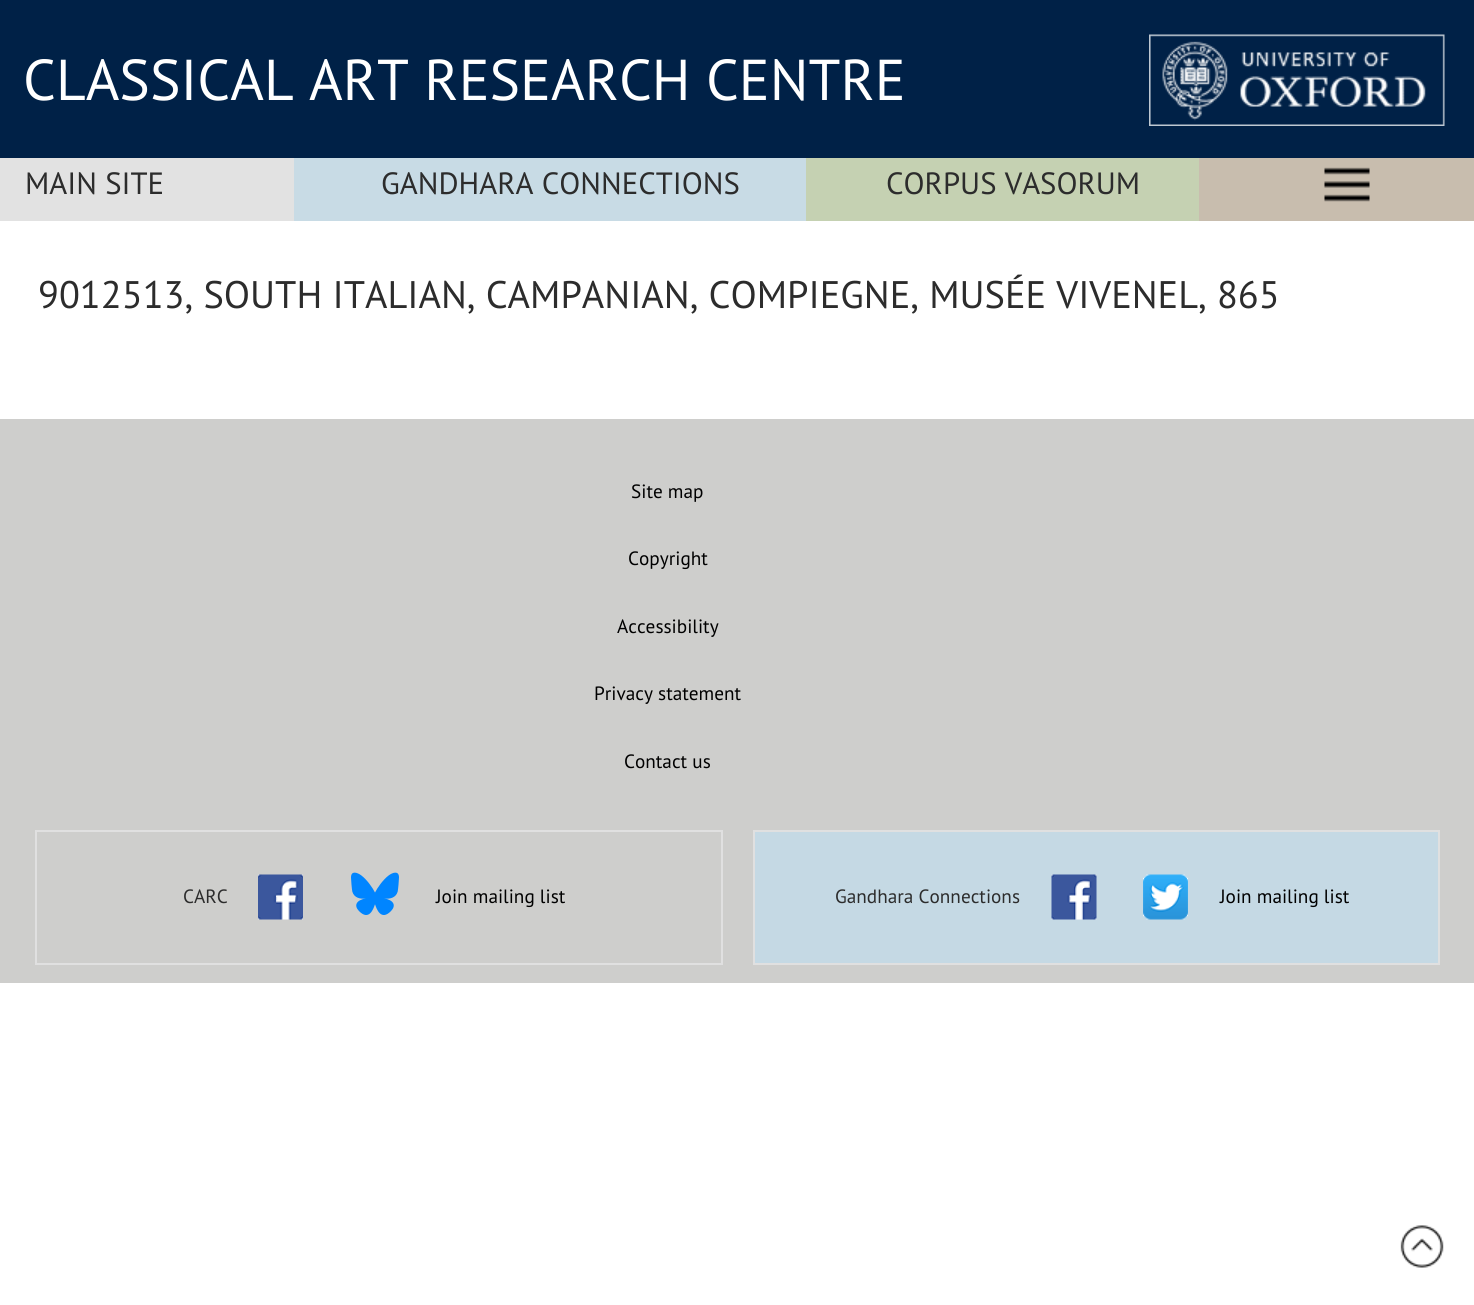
#include <cairo.h>
#include <math.h>
#include <stddef.h>

typedef struct { const char *family; double size; int italic, bold; unsigned color; } style_t;
static cairo_t *ctx;

static void ink(unsigned color) {
    cairo_set_source_rgb(ctx, (color >> 16) / 255.0, (color >> 8 & 255) / 255.0, (color & 255) / 255.0);
}

static void write(double x, double y, const char *s, const style_t *st) {
    cairo_select_font_face(ctx, st->family, st->italic ? CAIRO_FONT_SLANT_ITALIC : CAIRO_FONT_SLANT_NORMAL,
        st->bold ? CAIRO_FONT_WEIGHT_BOLD : CAIRO_FONT_WEIGHT_NORMAL);
    cairo_set_font_size(ctx, st->size);
    ink(st->color);
    cairo_move_to(ctx, x, y);
    cairo_show_text(ctx, s);
}

static void block(double x, double y, double w, double h, unsigned color) {
    ink(color);
    cairo_rectangle(ctx, x, y, w, h);
    cairo_fill(ctx);
}

static void paste(const char *path, double x, double y, double w, double h) {
    cairo_surface_t *image = cairo_image_surface_create_from_png(path);
    cairo_save(ctx);
    cairo_set_source_surface(ctx, image, x, y);
    cairo_rectangle(ctx, x, y, w, h);
    cairo_fill(ctx);
    cairo_restore(ctx);
    cairo_surface_destroy(image);
}

static const style_t s1 = {"PT Sans", 57.6, 0, 0, 0xffffff};
static const style_t s2 = {"PT Sans", 30.75, 0, 0, 0x2c2c2c};
static const style_t s3 = {"PT Sans", 38.4, 0, 0, 0x2c2c2c};
static const style_t s4 = {"PT Sans", 19.25, 0, 0, 0x000000};
static const style_t s5 = {"PT Sans", 19.25, 0, 0, 0x2c2c2c};

int main(void) {
    cairo_surface_t *surface = cairo_image_surface_create(CAIRO_FORMAT_RGB24, 1474, 1305);
    ctx = cairo_create(surface);
    cairo_font_options_t *options = cairo_font_options_create();
    cairo_font_options_set_hint_metrics(options, CAIRO_HINT_METRICS_OFF);
    cairo_font_options_set_hint_style(options, CAIRO_HINT_STYLE_NONE);
    cairo_set_font_options(ctx, options);
    cairo_set_miter_limit(ctx, 4);
    ink(0xffffff);
    cairo_paint(ctx);
    block(0, 0, 1474, 158, 0x002147);
    write(23, 100, "CLASSICAL ART RESEARCH CENTRE", &s1);
    paste("pic1.png", 1149, 34, 296, 92);
    block(0, 158, 294, 63, 0xe2e2e2);
    write(25, 194, "MAIN SITE", &s2);
    block(294, 158, 512, 63, 0xc8dbe5);
    write(381, 194, "GANDHARA CONNECTIONS", &s2);
    block(806, 158, 393, 63, 0xc5d1b2);
    write(886, 194, "CORPUS VASORUM", &s2);
    block(1199, 158, 275, 63, 0xc8bdae);
    paste("pic2.png", 1324, 167, 46, 35);
    write(38, 308, "9012513, SOUTH ITALIAN, CAMPANIAN, COMPIEGNE, MUSÉE VIVENEL, 865", &s3);
    block(0, 419, 1474, 564, 0xcececc);
    write(631, 498, "Site map", &s4);
    write(628, 565, "Copyright", &s4);
    write(617, 633, "Accessibility", &s4);
    write(594, 700, "Privacy statement", &s4);
    write(624, 768, "Contact us", &s4);
    cairo_rectangle(ctx, 36, 831, 686, 133);
    ink(0xe0e0e0);
    cairo_stroke(ctx);
    write(183, 903, "CARC", &s5);
    paste("pic3.png", 258, 874, 45, 46);
    paste("pic4.png", 351, 872, 48, 43);
    write(436, 903, "Join mailing list", &s4);
    ink(0xc5d9e4);
    cairo_rectangle(ctx, 754, 831, 685, 133);
    cairo_fill_preserve(ctx);
    ink(0xe0e0e0);
    cairo_stroke(ctx);
    write(835, 903, "Gandhara Connections", &s5);
    paste("pic5.png", 1051, 874, 46, 46);
    paste("pic6.png", 1143, 874, 45, 46);
    write(1220, 903, "Join mailing list", &s4);
    paste("pic7.png", 1400, 1225, 44, 43);
    cairo_surface_write_to_png(surface, "screenshot.png");
    cairo_font_options_destroy(options);
    cairo_destroy(ctx);
    cairo_surface_destroy(surface);
    return 0;
}
